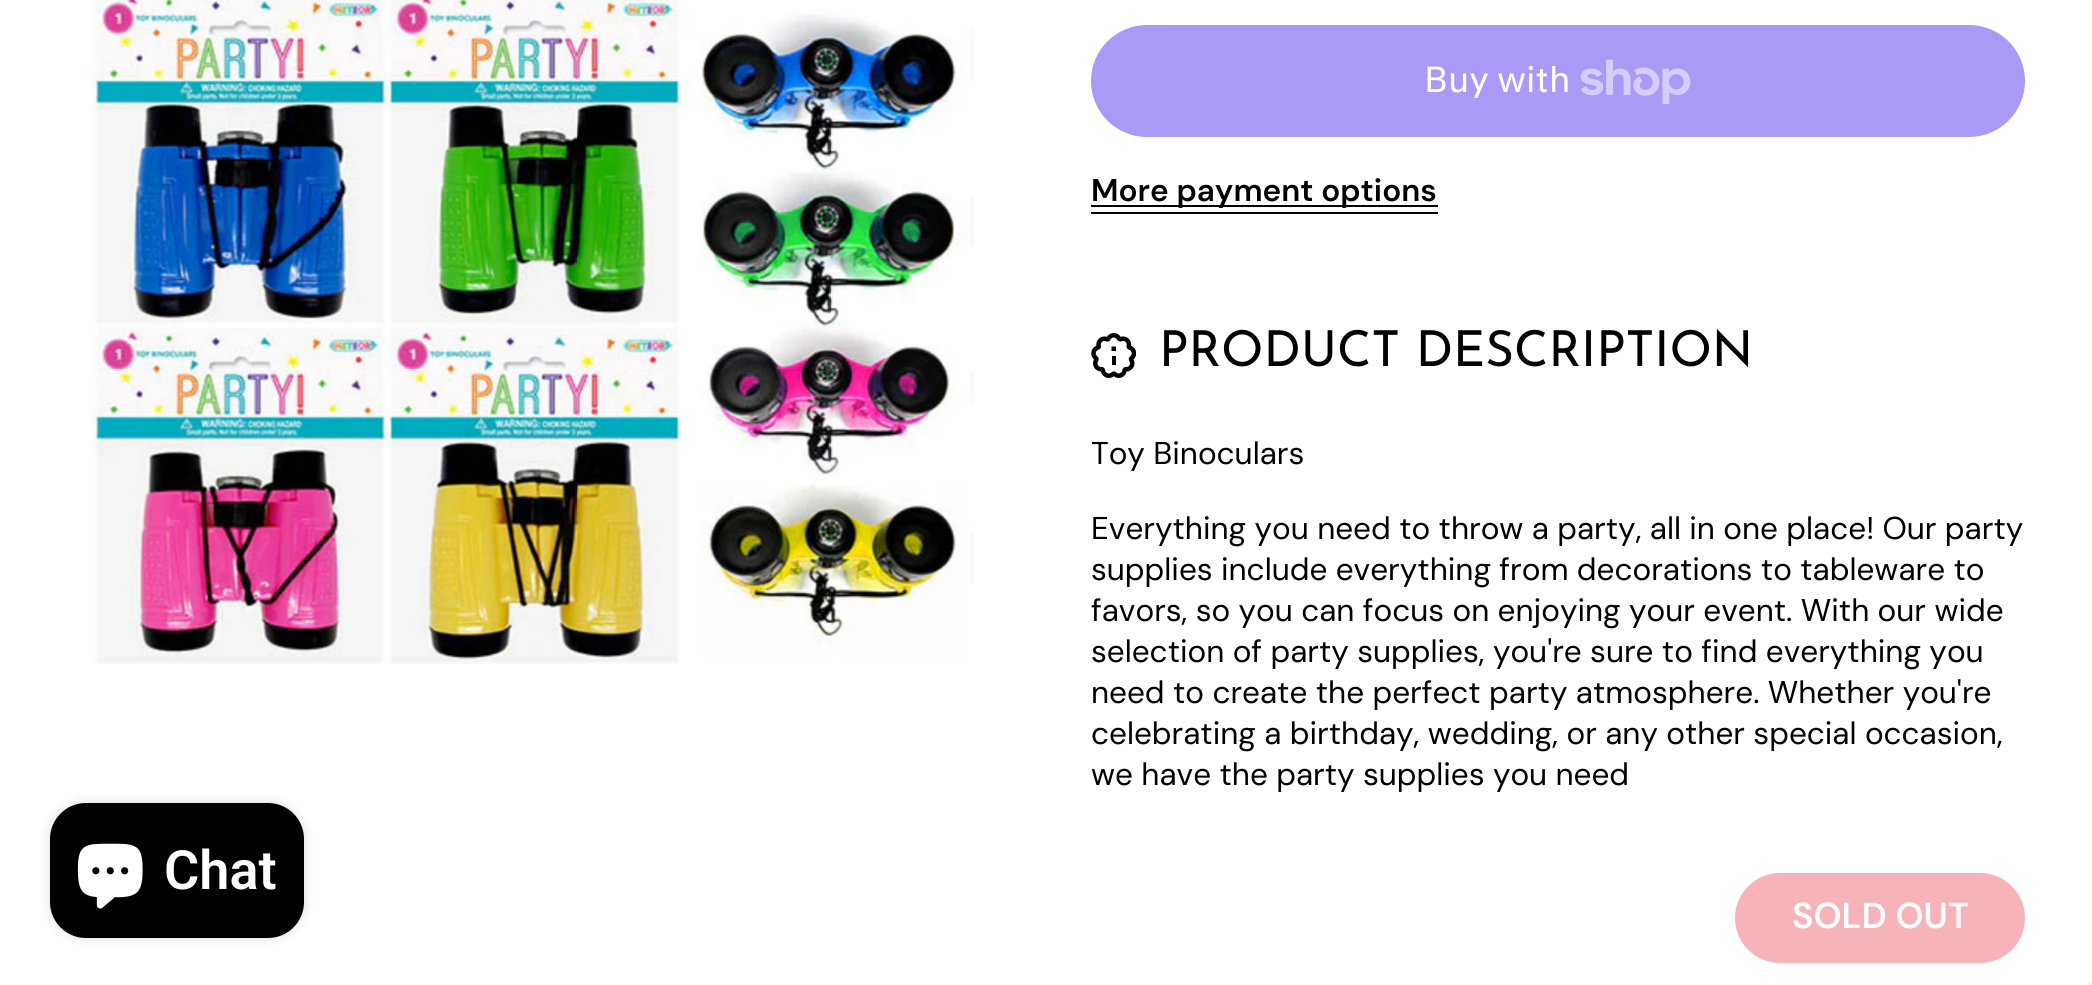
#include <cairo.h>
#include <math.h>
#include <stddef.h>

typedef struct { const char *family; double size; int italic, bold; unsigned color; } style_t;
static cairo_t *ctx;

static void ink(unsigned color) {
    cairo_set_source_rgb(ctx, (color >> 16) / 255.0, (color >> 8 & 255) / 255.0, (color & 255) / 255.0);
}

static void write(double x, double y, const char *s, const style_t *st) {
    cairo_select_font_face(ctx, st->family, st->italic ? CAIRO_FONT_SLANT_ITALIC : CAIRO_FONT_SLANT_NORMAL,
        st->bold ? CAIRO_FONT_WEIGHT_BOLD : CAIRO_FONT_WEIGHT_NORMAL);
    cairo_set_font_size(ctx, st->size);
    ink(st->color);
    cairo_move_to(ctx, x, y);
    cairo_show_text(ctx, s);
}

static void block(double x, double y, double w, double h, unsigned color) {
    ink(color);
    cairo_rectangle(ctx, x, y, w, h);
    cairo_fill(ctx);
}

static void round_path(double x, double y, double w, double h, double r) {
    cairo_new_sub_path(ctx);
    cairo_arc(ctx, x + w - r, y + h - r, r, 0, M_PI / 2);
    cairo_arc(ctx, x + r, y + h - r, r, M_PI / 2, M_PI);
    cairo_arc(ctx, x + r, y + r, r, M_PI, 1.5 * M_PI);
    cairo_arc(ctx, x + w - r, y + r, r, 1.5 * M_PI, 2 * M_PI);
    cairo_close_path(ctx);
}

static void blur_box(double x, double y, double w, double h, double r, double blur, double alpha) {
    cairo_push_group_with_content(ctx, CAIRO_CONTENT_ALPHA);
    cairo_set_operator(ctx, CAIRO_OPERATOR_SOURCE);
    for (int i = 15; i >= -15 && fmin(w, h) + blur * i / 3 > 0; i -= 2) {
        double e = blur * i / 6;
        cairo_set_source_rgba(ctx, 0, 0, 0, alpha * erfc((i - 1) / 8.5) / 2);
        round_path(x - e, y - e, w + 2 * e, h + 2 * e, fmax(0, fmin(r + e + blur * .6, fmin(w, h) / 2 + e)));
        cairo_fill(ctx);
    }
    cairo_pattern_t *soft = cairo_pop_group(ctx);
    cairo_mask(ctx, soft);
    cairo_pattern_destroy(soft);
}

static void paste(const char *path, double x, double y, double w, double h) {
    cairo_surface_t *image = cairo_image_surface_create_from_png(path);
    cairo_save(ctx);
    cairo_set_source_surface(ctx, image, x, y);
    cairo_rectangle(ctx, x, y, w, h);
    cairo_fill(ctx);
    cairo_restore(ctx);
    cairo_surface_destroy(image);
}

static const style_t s1 = {"Roboto SemiBold", 54, 0, 0, 0xffffff};
static const style_t s2 = {"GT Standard", 36, 0, 0, 0xffffff};
static const style_t s3 = {"DM Sans SemiBold", 31.5, 0, 0, 0x000000};
static const style_t s4 = {"Josefin Sans", 49.5, 0, 0, 0x000000};
static const style_t s5 = {"DM Sans", 31.5, 0, 0, 0x000000};
static const style_t s6 = {"DM Sans SemiBold", 36, 0, 0, 0xffffff};

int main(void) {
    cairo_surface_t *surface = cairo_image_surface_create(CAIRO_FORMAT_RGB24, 2092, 985);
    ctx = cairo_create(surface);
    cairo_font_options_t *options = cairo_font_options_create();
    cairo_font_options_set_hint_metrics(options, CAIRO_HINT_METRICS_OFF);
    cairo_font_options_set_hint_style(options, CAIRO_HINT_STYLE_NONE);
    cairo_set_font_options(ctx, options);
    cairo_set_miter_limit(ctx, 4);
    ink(0xffffff);
    cairo_paint(ctx);
    ink(0x000000);
    blur_box(50, 803, 254, 135, 36, 5.5, 0.15);
    ink(0x000000);
    round_path(50, 803, 254, 135, 36);
    cairo_fill(ctx);
    paste("pic1.png", 77, 843, 66, 66);
    write(164, 889, "Chat", &s1);
    paste("pic2.png", 91, 0, 883, 664);
    ink(0xaa99f5);
    round_path(1091, 25, 934, 112, 56);
    cairo_fill(ctx);
    write(1424, 92, "Buy with", &s2);
    paste("pic3.png", 1580, 59, 111, 45);
    block(1091, 205, 347, 2, 0x000000);
    write(1091, 201, "More payment options", &s3);
    block(1091, 212, 347, 2, 0x000000);
    paste("pic4.png", 1091, 333, 45, 45);
    write(1159, 366, "PRODUCT DESCRIPTION", &s4);
    write(1091, 464, "Toy Binoculars", &s5);
    write(1091, 539, "Everything you need to throw a party, all in one place! Our party", &s5);
    write(1091, 580, "supplies include everything from decorations to tableware to", &s5);
    write(1091, 621, "favors, so you can focus on enjoying your event. With our wide", &s5);
    write(1091, 662, "selection of party supplies, you're sure to find everything you", &s5);
    write(1091, 703, "need to create the perfect party atmosphere. Whether you're", &s5);
    write(1091, 744, "celebrating a birthday, wedding, or any other special occasion,", &s5);
    write(1091, 785, "we have the party supplies you need", &s5);
    ink(0xf6b4b8);
    round_path(1735, 873, 290, 90, 45);
    cairo_fill(ctx);
    write(1792, 928, "SOLD OUT", &s6);
    block(2088, 981, 4, 4, 0xf5f5f5);
    cairo_surface_write_to_png(surface, "screenshot.png");
    cairo_font_options_destroy(options);
    cairo_destroy(ctx);
    cairo_surface_destroy(surface);
    return 0;
}
